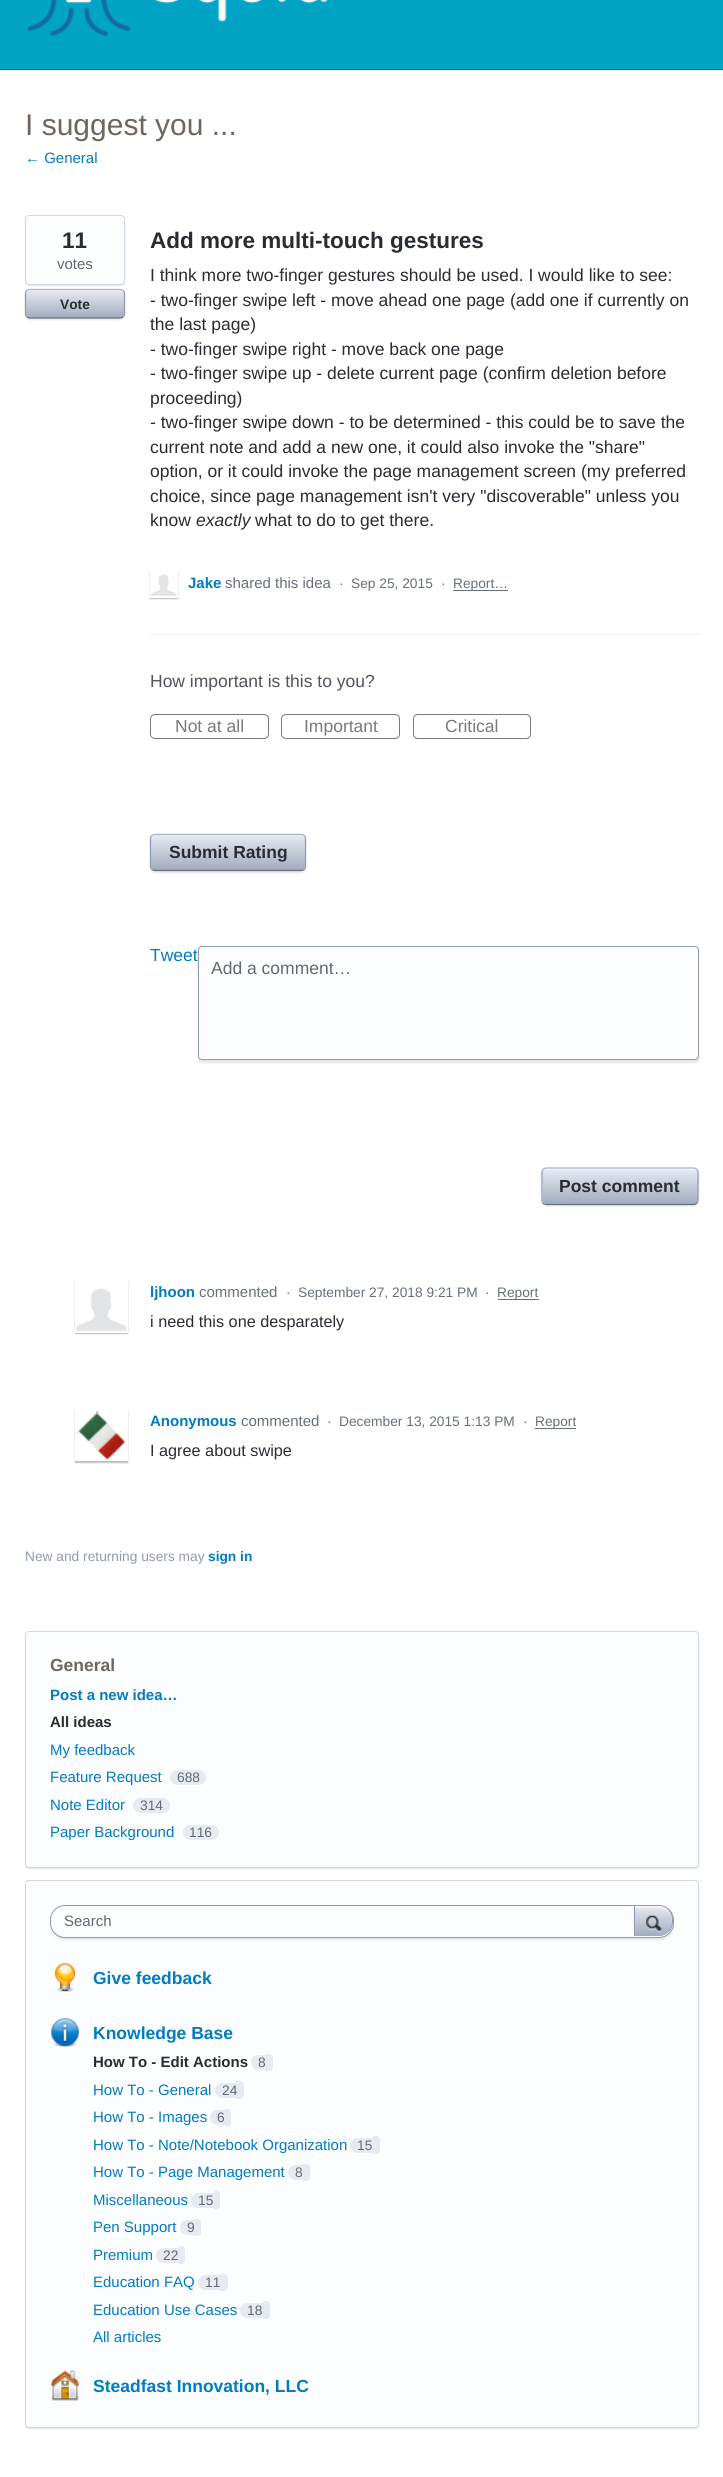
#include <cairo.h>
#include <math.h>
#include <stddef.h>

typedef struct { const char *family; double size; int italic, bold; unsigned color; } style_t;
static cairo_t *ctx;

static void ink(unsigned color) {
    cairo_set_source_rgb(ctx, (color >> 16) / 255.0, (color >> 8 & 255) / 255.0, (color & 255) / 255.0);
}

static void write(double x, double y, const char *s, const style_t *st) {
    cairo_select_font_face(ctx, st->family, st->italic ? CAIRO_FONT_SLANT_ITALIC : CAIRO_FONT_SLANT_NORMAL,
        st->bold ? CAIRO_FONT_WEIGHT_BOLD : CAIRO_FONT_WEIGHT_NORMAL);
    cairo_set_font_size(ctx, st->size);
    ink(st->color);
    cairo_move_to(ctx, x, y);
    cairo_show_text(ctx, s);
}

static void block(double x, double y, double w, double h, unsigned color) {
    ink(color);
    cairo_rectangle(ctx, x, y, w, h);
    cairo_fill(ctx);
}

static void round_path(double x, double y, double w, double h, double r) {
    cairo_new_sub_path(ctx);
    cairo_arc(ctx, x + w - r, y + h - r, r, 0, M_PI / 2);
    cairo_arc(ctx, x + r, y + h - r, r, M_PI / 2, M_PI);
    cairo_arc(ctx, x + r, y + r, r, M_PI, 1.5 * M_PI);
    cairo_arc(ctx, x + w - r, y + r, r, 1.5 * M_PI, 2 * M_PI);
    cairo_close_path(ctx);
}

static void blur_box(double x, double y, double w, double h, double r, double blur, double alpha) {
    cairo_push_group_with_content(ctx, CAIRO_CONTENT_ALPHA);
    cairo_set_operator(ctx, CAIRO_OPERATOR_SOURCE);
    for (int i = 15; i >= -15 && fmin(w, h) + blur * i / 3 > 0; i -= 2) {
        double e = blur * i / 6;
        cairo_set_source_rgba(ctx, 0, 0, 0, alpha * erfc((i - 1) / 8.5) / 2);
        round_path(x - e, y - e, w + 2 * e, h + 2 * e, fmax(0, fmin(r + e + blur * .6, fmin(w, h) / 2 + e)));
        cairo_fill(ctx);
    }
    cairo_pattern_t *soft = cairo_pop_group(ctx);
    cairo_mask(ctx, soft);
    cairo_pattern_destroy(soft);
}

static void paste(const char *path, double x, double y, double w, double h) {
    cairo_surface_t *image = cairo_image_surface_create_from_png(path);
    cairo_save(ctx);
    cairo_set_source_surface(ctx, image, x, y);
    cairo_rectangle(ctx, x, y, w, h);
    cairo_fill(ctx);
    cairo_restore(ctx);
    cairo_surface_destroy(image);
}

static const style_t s1 = {"Liberation Sans", 30, 0, 0, 0x6f675e};
static const style_t s2 = {"Liberation Sans", 15, 0, 0, 0x007cbf};
static const style_t s3 = {"Liberation Sans", 22.5, 0, 1, 0x292c33};
static const style_t s4 = {"Liberation Sans", 15, 0, 0, 0x616973};
static const style_t s5 = {"Liberation Sans", 13.75, 0, 1, 0x292c33};
static const style_t s6 = {"Liberation Sans", 17.5, 0, 0, 0x292c33};
static const style_t s7 = {"Liberation Sans", 17.5, 1, 0, 0x292c33};
static const style_t s8 = {"Liberation Sans", 15, 0, 1, 0x007cbf};
static const style_t s9 = {"Liberation Sans", 15, 0, 0, 0x666f80};
static const style_t s10 = {"Liberation Sans", 13.75, 0, 0, 0x616973};
static const style_t s11 = {"Liberation Sans", 13.75, 0, 0, 0x666f80};
static const style_t s12 = {"Liberation Sans", 17.5, 0, 0, 0x525260};
static const style_t s13 = {"Liberation Sans", 17.5, 0, 0, 0x797986};
static const style_t s14 = {"Liberation Sans", 17.5, 0, 1, 0x292c33};
static const style_t s15 = {"Liberation Sans", 17.5, 0, 0, 0x007cbf};
static const style_t s16 = {"Liberation Sans", 17.5, 0, 0, 0x616973};
static const style_t s17 = {"Liberation Sans", 16.25, 0, 0, 0x292c33};
static const style_t s18 = {"Liberation Sans", 13.75, 0, 0, 0x8f9bb3};
static const style_t s19 = {"Liberation Sans", 13.75, 0, 1, 0x007cbf};
static const style_t s20 = {"Liberation Sans", 17.5, 0, 1, 0x6f675e};
static const style_t s21 = {"Liberation Sans", 15, 0, 1, 0x292c33};
static const style_t s22 = {"Liberation Sans", 17.5, 0, 1, 0x007cbf};

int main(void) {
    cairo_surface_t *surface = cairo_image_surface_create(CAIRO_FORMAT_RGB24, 723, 2477);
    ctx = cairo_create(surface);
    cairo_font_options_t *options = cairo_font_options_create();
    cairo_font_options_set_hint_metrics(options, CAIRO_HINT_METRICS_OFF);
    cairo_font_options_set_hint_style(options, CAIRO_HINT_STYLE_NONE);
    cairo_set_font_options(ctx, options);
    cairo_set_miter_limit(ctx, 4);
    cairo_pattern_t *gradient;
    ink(0xffffff);
    cairo_paint(ctx);
    block(0, 0, 723, 69, 0x01a4c5);
    block(0, 69, 723, 1, 0x017b94);
    paste("pic1.png", 27, 0, 301, 36);
    block(0, 70, 723, 1, 0xe3e8f2);
    write(25, 135, "I suggest you ...", &s1);
    write(25, 163, "← General", &s2);
    ink(0x000000);
    blur_box(25, 216, 100, 70, 4, 0.5, 0.1);
    ink(0xfcfdff);
    round_path(25.5, 215.5, 99, 69, 3.5);
    cairo_fill_preserve(ctx);
    ink(0xcfd7e6);
    cairo_set_line_width(ctx, 1);
    cairo_stroke(ctx);
    write(62, 248, "11", &s3);
    write(57, 269, "votes", &s4);
    ink(0x000000);
    blur_box(25, 290, 100, 30, 5, 1, 0.1);
    gradient = cairo_pattern_create_linear(26, 290, 26, 318);
    cairo_pattern_add_color_stop_rgba(gradient, 0, 0.902, 0.918, 0.949, 1);
    cairo_pattern_add_color_stop_rgba(gradient, 1, 0.635, 0.675, 0.749, 1);
    cairo_set_source(ctx, gradient);
    cairo_pattern_destroy(gradient);
    round_path(26, 290, 98, 28, 4);
    cairo_fill(ctx);
    cairo_set_source_rgba(ctx, 1, 1, 1, 0.5);
    cairo_new_path(ctx);
    cairo_move_to(ctx, 30, 291);
    cairo_line_to(ctx, 120, 291);
    cairo_curve_to(ctx, 122, 291, 124, 293, 124, 295);
    cairo_curve_to(ctx, 124, 286, 109, 290, 105, 290);
    cairo_line_to(ctx, 45, 290);
    cairo_curve_to(ctx, 41, 290, 26, 286, 26, 295);
    cairo_curve_to(ctx, 26, 293, 28, 291, 30, 291);
    cairo_close_path(ctx);
    cairo_fill(ctx);
    cairo_new_path(ctx);
    cairo_move_to(ctx, 27, 290.5);
    cairo_curve_to(ctx, 27.5, 290, 29, 289.5, 30, 289.5);
    cairo_line_to(ctx, 120, 289.5);
    cairo_curve_to(ctx, 121, 289.5, 122.5, 290, 123, 290.5);
    ink(0xa3b1cc);
    cairo_set_line_width(ctx, 1.2);
    cairo_stroke(ctx);
    cairo_new_path(ctx);
    cairo_move_to(ctx, 123, 290.5);
    cairo_curve_to(ctx, 124, 291.5, 124.5, 292.5, 124.5, 294);
    cairo_line_to(ctx, 124.5, 314);
    cairo_curve_to(ctx, 124.5, 315, 124, 316, 123, 317);
    ink(0x8f9bb3);
    cairo_stroke(ctx);
    cairo_new_path(ctx);
    cairo_move_to(ctx, 123, 317);
    cairo_curve_to(ctx, 122.5, 317.5, 121, 318, 120, 318);
    cairo_line_to(ctx, 30, 318);
    cairo_curve_to(ctx, 29, 318, 27.5, 317.5, 27, 317);
    ink(0x666f80);
    cairo_stroke(ctx);
    cairo_new_path(ctx);
    cairo_move_to(ctx, 27, 317);
    cairo_curve_to(ctx, 26, 316, 25.5, 315, 25.5, 314);
    cairo_line_to(ctx, 25.5, 294);
    cairo_curve_to(ctx, 25.5, 292.5, 26, 291.5, 27, 290.5);
    ink(0x8f9bb3);
    cairo_stroke(ctx);
    write(60, 309, "Vote", &s5);
    write(150, 248, "Add more multi-touch gestures", &s3);
    write(150, 281, "I think more two-finger gestures should be used. I would like to see:", &s6);
    write(150, 306, "- two-finger swipe left - move ahead one page (add one if currently on", &s6);
    write(150, 330, "the last page)", &s6);
    write(150, 355, "- two-finger swipe right - move back one page", &s6);
    write(150, 379, "- two-finger swipe up - delete current page (confirm deletion before", &s6);
    write(150, 404, "proceeding)", &s6);
    write(150, 428, "- two-finger swipe down - to be determined - this could be to save the", &s6);
    write(150, 453, "current note and add a new one, it could also invoke the \"share\"", &s6);
    write(150, 477, "option, or it could invoke the page management screen (my preferred", &s6);
    write(150, 502, "choice, since page management isn't very \"discoverable\" unless you", &s6);
    write(150, 526, "know", &s6);
    write(196, 526, "exactly", &s7);
    write(255, 526, "what to do to get there.", &s6);
    cairo_save(ctx);
    cairo_set_fill_rule(ctx, CAIRO_FILL_RULE_EVEN_ODD);
    cairo_new_path(ctx);
    cairo_move_to(ctx, 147, 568);
    cairo_line_to(ctx, 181, 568);
    cairo_line_to(ctx, 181, 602);
    cairo_line_to(ctx, 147, 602);
    cairo_close_path(ctx);
    cairo_move_to(ctx, 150, 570);
    cairo_line_to(ctx, 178, 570);
    cairo_line_to(ctx, 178, 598);
    cairo_line_to(ctx, 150, 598);
    cairo_close_path(ctx);
    cairo_clip(ctx);
    ink(0x000000);
    blur_box(150, 571, 28, 28, 0, 0.5, 0.25);
    cairo_restore(ctx);
    cairo_rectangle(ctx, 150.5, 570.5, 27, 27);
    ink(0xffffff);
    cairo_set_line_width(ctx, 1);
    cairo_stroke(ctx);
    paste("pic2.png", 151, 574, 26, 22);
    write(188, 588, "Jake", &s8);
    write(225, 588, "shared this idea", &s9);
    write(339, 588, "·", &s10);
    write(351, 588, "Sep 25, 2015", &s11);
    write(441, 588, "·", &s10);
    block(453, 590, 55, 1, 0x666f80);
    write(453, 588, "Report…", &s11);
    block(150, 634, 549, 1, 0xebebf1);
    write(150, 687, "How important is this to you?", &s12);
    round_path(150.5, 714.5, 118, 24, 4.5);
    ink(0x797986);
    cairo_stroke(ctx);
    write(175, 732, "Not at all", &s13);
    round_path(281.5, 714.5, 118, 24, 4.5);
    cairo_stroke(ctx);
    write(304, 732, "Important", &s13);
    round_path(413.5, 714.5, 117, 24, 4.5);
    cairo_stroke(ctx);
    write(445, 732, "Critical", &s13);
    ink(0x000000);
    blur_box(150, 835, 156, 38, 5, 1, 0.1);
    gradient = cairo_pattern_create_linear(151, 835, 151, 870);
    cairo_pattern_add_color_stop_rgba(gradient, 0, 0.902, 0.918, 0.949, 1);
    cairo_pattern_add_color_stop_rgba(gradient, 1, 0.635, 0.675, 0.749, 1);
    cairo_set_source(ctx, gradient);
    cairo_pattern_destroy(gradient);
    round_path(151, 835, 154, 35, 4);
    cairo_fill(ctx);
    cairo_set_source_rgba(ctx, 1, 1, 1, 0.5);
    cairo_new_path(ctx);
    cairo_move_to(ctx, 155, 836);
    cairo_line_to(ctx, 301, 836);
    cairo_curve_to(ctx, 303, 836, 305, 838, 305, 840);
    cairo_curve_to(ctx, 305, 838, 304, 836, 302, 835);
    cairo_line_to(ctx, 155, 835);
    cairo_curve_to(ctx, 152, 835, 151, 837, 151, 840);
    cairo_curve_to(ctx, 151, 838, 153, 836, 155, 836);
    cairo_close_path(ctx);
    cairo_fill(ctx);
    cairo_new_path(ctx);
    cairo_move_to(ctx, 152, 835.5);
    cairo_curve_to(ctx, 152.5, 835, 154, 834.5, 155, 834.5);
    cairo_line_to(ctx, 301, 834.5);
    cairo_curve_to(ctx, 302.5, 834.5, 303.5, 835, 304.5, 835.5);
    ink(0xa3b1cc);
    cairo_set_line_width(ctx, 1.2);
    cairo_stroke(ctx);
    cairo_new_path(ctx);
    cairo_move_to(ctx, 304.5, 835.5);
    cairo_curve_to(ctx, 305, 836.5, 305.5, 837.5, 305.5, 839);
    cairo_line_to(ctx, 305.5, 866);
    cairo_curve_to(ctx, 305.5, 867.5, 305, 868.5, 304.5, 869.5);
    ink(0x8f9bb3);
    cairo_stroke(ctx);
    cairo_new_path(ctx);
    cairo_move_to(ctx, 304.5, 869.5);
    cairo_curve_to(ctx, 303.5, 870, 302.5, 870.5, 301, 870.5);
    cairo_line_to(ctx, 155, 870.5);
    cairo_curve_to(ctx, 154, 870.5, 152.5, 870, 152, 869.5);
    ink(0x666f80);
    cairo_stroke(ctx);
    cairo_new_path(ctx);
    cairo_move_to(ctx, 152, 869.5);
    cairo_curve_to(ctx, 151, 868.5, 150.5, 867.5, 150.5, 866);
    cairo_line_to(ctx, 150.5, 839);
    cairo_curve_to(ctx, 150.5, 837.5, 151, 836.5, 152, 835.5);
    ink(0x8f9bb3);
    cairo_stroke(ctx);
    write(169, 858, "Submit Rating", &s14);
    ink(0x000000);
    blur_box(198, 949, 501, 114, 4, 1, 0.1);
    write(150, 961, "Tweet", &s15);
    ink(0xfcfdff);
    round_path(198.5, 946.5, 500, 113, 3.5);
    cairo_fill_preserve(ctx);
    ink(0x8f9bb3);
    cairo_set_line_width(ctx, 1);
    cairo_stroke(ctx);
    write(211, 974, "Add a comment…", &s16);
    ink(0x000000);
    blur_box(541, 1169, 158, 37, 5, 1, 0.1);
    gradient = cairo_pattern_create_linear(543, 1169, 543, 1204);
    cairo_pattern_add_color_stop_rgba(gradient, 0, 0.902, 0.918, 0.949, 1);
    cairo_pattern_add_color_stop_rgba(gradient, 1, 0.635, 0.675, 0.749, 1);
    cairo_set_source(ctx, gradient);
    cairo_pattern_destroy(gradient);
    round_path(543, 1169, 155, 35, 4);
    cairo_fill(ctx);
    cairo_set_source_rgba(ctx, 1, 1, 1, 0.5);
    cairo_new_path(ctx);
    cairo_move_to(ctx, 546, 1170);
    cairo_line_to(ctx, 694, 1170);
    cairo_curve_to(ctx, 696, 1170, 698, 1172, 698, 1174);
    cairo_line_to(ctx, 698, 1173);
    cairo_curve_to(ctx, 698, 1171, 696, 1169, 694, 1169);
    cairo_line_to(ctx, 547, 1169);
    cairo_curve_to(ctx, 546, 1169, 544, 1170, 544, 1171);
    cairo_close_path(ctx);
    cairo_fill(ctx);
    cairo_new_path(ctx);
    cairo_move_to(ctx, 543, 1169.5);
    cairo_curve_to(ctx, 544, 1168.5, 545, 1168, 546, 1168);
    cairo_line_to(ctx, 694, 1168);
    cairo_curve_to(ctx, 695, 1168, 696, 1168.5, 697, 1169.5);
    ink(0xa3b1cc);
    cairo_set_line_width(ctx, 1.2);
    cairo_stroke(ctx);
    cairo_new_path(ctx);
    cairo_move_to(ctx, 697, 1169.5);
    cairo_curve_to(ctx, 697.5, 1170, 698, 1171.5, 698, 1172.5);
    cairo_line_to(ctx, 698, 1200);
    cairo_curve_to(ctx, 698, 1201, 697.5, 1202.5, 697, 1203);
    ink(0x8f9bb3);
    cairo_stroke(ctx);
    cairo_new_path(ctx);
    cairo_move_to(ctx, 697, 1203);
    cairo_curve_to(ctx, 696, 1204, 695, 1204.5, 694, 1204.5);
    cairo_line_to(ctx, 546, 1204.5);
    cairo_curve_to(ctx, 545, 1204.5, 544, 1204, 543, 1203);
    ink(0x666f80);
    cairo_stroke(ctx);
    cairo_new_path(ctx);
    cairo_move_to(ctx, 543, 1203);
    cairo_curve_to(ctx, 542.5, 1202.5, 542, 1201, 542, 1200);
    cairo_line_to(ctx, 542, 1172.5);
    cairo_curve_to(ctx, 542, 1171.5, 542.5, 1170, 543, 1169.5);
    ink(0x8f9bb3);
    cairo_stroke(ctx);
    write(559, 1192, "Post comment", &s14);
    cairo_save(ctx);
    cairo_set_fill_rule(ctx, CAIRO_FILL_RULE_EVEN_ODD);
    cairo_new_path(ctx);
    cairo_move_to(ctx, 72, 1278);
    cairo_line_to(ctx, 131, 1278);
    cairo_line_to(ctx, 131, 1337);
    cairo_line_to(ctx, 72, 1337);
    cairo_close_path(ctx);
    cairo_move_to(ctx, 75, 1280);
    cairo_line_to(ctx, 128, 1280);
    cairo_line_to(ctx, 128, 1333);
    cairo_line_to(ctx, 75, 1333);
    cairo_close_path(ctx);
    cairo_clip(ctx);
    ink(0x000000);
    blur_box(75, 1281, 53, 53, 0, 0.5, 0.25);
    cairo_restore(ctx);
    cairo_rectangle(ctx, 75.5, 1280.5, 52, 52);
    ink(0xffffff);
    cairo_set_line_width(ctx, 1);
    cairo_stroke(ctx);
    paste("pic3.png", 76, 1288, 51, 43);
    write(150, 1297, "ljhoon", &s8);
    write(199, 1297, "commented", &s9);
    write(286, 1297, "·", &s10);
    write(298, 1297, "September 27, 2018 9:21 PM", &s11);
    write(485, 1297, "·", &s10);
    block(498, 1299, 41, 1, 0x666f80);
    write(497, 1297, "Report", &s11);
    write(150, 1327, "i need this one desparately", &s17);
    cairo_save(ctx);
    cairo_set_fill_rule(ctx, CAIRO_FILL_RULE_EVEN_ODD);
    cairo_new_path(ctx);
    cairo_move_to(ctx, 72, 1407);
    cairo_line_to(ctx, 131, 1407);
    cairo_line_to(ctx, 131, 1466);
    cairo_line_to(ctx, 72, 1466);
    cairo_close_path(ctx);
    cairo_move_to(ctx, 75, 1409);
    cairo_line_to(ctx, 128, 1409);
    cairo_line_to(ctx, 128, 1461);
    cairo_line_to(ctx, 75, 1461);
    cairo_close_path(ctx);
    cairo_clip(ctx);
    ink(0x000000);
    blur_box(75, 1410, 53, 53, 0, 0.5, 0.25);
    cairo_restore(ctx);
    cairo_rectangle(ctx, 75.5, 1409.5, 52, 51);
    ink(0xffffff);
    cairo_stroke(ctx);
    paste("pic4.png", 76, 1410, 50, 50);
    write(150, 1426, "Anonymous", &s8);
    write(241, 1426, "commented", &s9);
    write(327, 1426, "·", &s10);
    write(339, 1426, "December 13, 2015 1:13 PM", &s11);
    write(523, 1426, "·", &s10);
    block(535, 1428, 41, 1, 0x666f80);
    write(535, 1426, "Report", &s11);
    write(150, 1456, "I agree about swipe", &s17);
    write(25, 1561, "New and returning users may", &s18);
    write(208, 1561, "sign in", &s19);
    ink(0x000000);
    blur_box(25, 1633, 674, 236, 4, 0.5, 0.1);
    ink(0xfcfdff);
    round_path(25.5, 1631.5, 673, 236, 3.5);
    cairo_fill_preserve(ctx);
    ink(0xcfd7e6);
    cairo_stroke(ctx);
    write(50, 1671, "General", &s20);
    write(50, 1700, "Post a new idea…", &s8);
    write(50, 1727, "All ideas", &s21);
    write(50, 1755, "My feedback", &s2);
    write(50, 1782, "Feature Request", &s2);
    ink(0xe7eaf2);
    round_path(170, 1770, 36, 15, 7.5);
    cairo_fill(ctx);
    write(177, 1782, "688", &s10);
    write(50, 1810, "Note Editor", &s2);
    ink(0xe7eaf2);
    round_path(133, 1798, 37, 15, 7.5);
    cairo_fill(ctx);
    write(140, 1810, "314", &s10);
    write(50, 1837, "Paper Background", &s2);
    ink(0xe7eaf2);
    round_path(183, 1825, 36, 15, 7.5);
    cairo_fill(ctx);
    write(189, 1837, "116", &s10);
    ink(0x000000);
    blur_box(25, 1881, 674, 548, 4, 0.5, 0.1);
    ink(0xfcfdff);
    round_path(25.5, 1880.5, 673, 547, 3.5);
    cairo_fill_preserve(ctx);
    ink(0xcfd7e6);
    cairo_stroke(ctx);
    ink(0x000000);
    blur_box(50, 1908, 624, 32, 15, 1, 0.1);
    ink(0xfcfdff);
    round_path(50.5, 1905.5, 623, 32, 14.5);
    cairo_fill_preserve(ctx);
    ink(0x8f9bb3);
    cairo_stroke(ctx);
    write(64, 1926, "Search", &s4);
    cairo_save(ctx);
    round_path(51, 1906, 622, 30, 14);
    cairo_clip(ctx);
    ink(0x000000);
    blur_box(634, 1906, 40, 32, 15, 1, 0.1);
    cairo_restore(ctx);
    gradient = cairo_pattern_create_linear(635, 1906, 635, 1936);
    cairo_pattern_add_color_stop_rgba(gradient, 0, 0.902, 0.918, 0.949, 1);
    cairo_pattern_add_color_stop_rgba(gradient, 1, 0.635, 0.675, 0.749, 1);
    cairo_set_source(ctx, gradient);
    cairo_pattern_destroy(gradient);
    cairo_new_path(ctx);
    cairo_move_to(ctx, 635, 1906);
    cairo_line_to(ctx, 659, 1906);
    cairo_curve_to(ctx, 666.5, 1906, 672.5, 1912.5, 672.5, 1920);
    cairo_line_to(ctx, 672.5, 1921);
    cairo_curve_to(ctx, 672.5, 1929.5, 666.5, 1936, 659, 1936);
    cairo_line_to(ctx, 635, 1936);
    cairo_close_path(ctx);
    cairo_fill(ctx);
    cairo_set_source_rgba(ctx, 1, 1, 1, 0.5);
    cairo_new_path(ctx);
    cairo_move_to(ctx, 635, 1906);
    cairo_line_to(ctx, 635, 1908);
    cairo_line_to(ctx, 651, 1908);
    cairo_curve_to(ctx, 654.5, 1908, 658, 1907.5, 661.5, 1908.5);
    cairo_curve_to(ctx, 671, 1910, 673.5, 1920, 671, 1928);
    cairo_curve_to(ctx, 675.5, 1918.5, 670, 1906, 659, 1906);
    cairo_close_path(ctx);
    cairo_fill(ctx);
    ink(0xa3b1cc);
    cairo_set_fill_rule(ctx, CAIRO_FILL_RULE_EVEN_ODD);
    cairo_new_path(ctx);
    cairo_move_to(ctx, 635, 1906);
    cairo_line_to(ctx, 635, 1906);
    cairo_close_path(ctx);
    cairo_move_to(ctx, 659, 1906);
    cairo_curve_to(ctx, 663, 1906, 666.5, 1907.5, 669, 1910);
    cairo_line_to(ctx, 668.5, 1910.5);
    cairo_curve_to(ctx, 666, 1907.5, 662.5, 1906, 659, 1906);
    cairo_close_path(ctx);
    cairo_fill(ctx);
    ink(0x8f9bb3);
    cairo_set_fill_rule(ctx, CAIRO_FILL_RULE_WINDING);
    cairo_new_path(ctx);
    cairo_move_to(ctx, 668.5, 1910.5);
    cairo_curve_to(ctx, 676, 1918.5, 671.5, 1936, 659, 1936);
    cairo_curve_to(ctx, 672.5, 1936, 677.5, 1918.5, 669, 1910);
    cairo_close_path(ctx);
    cairo_fill(ctx);
    block(634, 1906, 1, 30, 0x8f9bb3);
    paste("pic5.png", 646, 1915, 16, 18);
    paste("pic6.png", 54, 1963, 22, 29);
    write(93, 1984, "Give feedback", &s22);
    paste("pic7.png", 51, 2018, 28, 29);
    write(93, 2039, "Knowledge Base", &s22);
    write(93, 2067, "How To - Edit Actions", &s21);
    ink(0xe7eaf2);
    cairo_new_path(ctx);
    cairo_move_to(ctx, 258.5, 2055);
    cairo_line_to(ctx, 266, 2055);
    cairo_line_to(ctx, 266, 2070);
    cairo_line_to(ctx, 258.5, 2070);
    cairo_curve_to(ctx, 254.5, 2070, 251, 2066.5, 251, 2062.5);
    cairo_curve_to(ctx, 251, 2058.5, 254.5, 2055, 258.5, 2055);
    cairo_close_path(ctx);
    cairo_fill(ctx);
    write(258, 2067, "8", &s10);
    ink(0xe7eaf2);
    cairo_new_path(ctx);
    cairo_move_to(ctx, 266, 2054);
    cairo_line_to(ctx, 269.5, 2054);
    cairo_curve_to(ctx, 271.5, 2054, 273, 2055.5, 273, 2057.5);
    cairo_line_to(ctx, 273, 2067.5);
    cairo_curve_to(ctx, 273, 2069.5, 271.5, 2071, 269.5, 2071);
    cairo_line_to(ctx, 266, 2071);
    cairo_close_path(ctx);
    cairo_fill(ctx);
    write(93, 2095, "How To - General", &s2);
    ink(0xe7eaf2);
    cairo_new_path(ctx);
    cairo_move_to(ctx, 222.5, 2083);
    cairo_line_to(ctx, 236, 2083);
    cairo_line_to(ctx, 236, 2098);
    cairo_line_to(ctx, 222.5, 2098);
    cairo_curve_to(ctx, 218.5, 2098, 215, 2094.5, 215, 2090.5);
    cairo_curve_to(ctx, 215, 2086.5, 218.5, 2083, 222.5, 2083);
    cairo_close_path(ctx);
    cairo_fill(ctx);
    cairo_new_path(ctx);
    cairo_move_to(ctx, 236, 2081);
    cairo_line_to(ctx, 240, 2081);
    cairo_curve_to(ctx, 242, 2081, 244, 2083, 244, 2085);
    cairo_line_to(ctx, 244, 2095);
    cairo_curve_to(ctx, 244, 2097, 242, 2099, 240, 2099);
    cairo_line_to(ctx, 236, 2099);
    cairo_close_path(ctx);
    cairo_fill(ctx);
    write(222, 2095, "24", &s10);
    write(93, 2122, "How To - Images", &s2);
    ink(0xe7eaf2);
    cairo_new_path(ctx);
    cairo_move_to(ctx, 217.5, 2110);
    cairo_line_to(ctx, 225, 2110);
    cairo_line_to(ctx, 225, 2125);
    cairo_line_to(ctx, 217.5, 2125);
    cairo_curve_to(ctx, 213.5, 2125, 210, 2121.5, 210, 2117.5);
    cairo_curve_to(ctx, 210, 2113.5, 213.5, 2110, 217.5, 2110);
    cairo_close_path(ctx);
    cairo_fill(ctx);
    write(217, 2122, "6", &s10);
    ink(0xe7eaf2);
    cairo_new_path(ctx);
    cairo_move_to(ctx, 225, 2109);
    cairo_line_to(ctx, 228, 2109);
    cairo_curve_to(ctx, 229.5, 2109, 231, 2110.5, 231, 2112);
    cairo_line_to(ctx, 231, 2123);
    cairo_curve_to(ctx, 231, 2124.5, 229.5, 2126, 228, 2126);
    cairo_line_to(ctx, 225, 2126);
    cairo_close_path(ctx);
    cairo_fill(ctx);
    write(93, 2150, "How To - Note/Notebook Organization", &s2);
    ink(0xe7eaf2);
    cairo_new_path(ctx);
    cairo_move_to(ctx, 357.5, 2138);
    cairo_line_to(ctx, 373, 2138);
    cairo_line_to(ctx, 373, 2153);
    cairo_line_to(ctx, 357.5, 2153);
    cairo_curve_to(ctx, 353.5, 2153, 350, 2149.5, 350, 2145.5);
    cairo_curve_to(ctx, 350, 2141.5, 353.5, 2138, 357.5, 2138);
    cairo_close_path(ctx);
    cairo_fill(ctx);
    write(357, 2150, "15", &s10);
    ink(0xe7eaf2);
    cairo_new_path(ctx);
    cairo_move_to(ctx, 373, 2136);
    cairo_line_to(ctx, 376.5, 2136);
    cairo_curve_to(ctx, 378.5, 2136, 380, 2137.5, 380, 2139.5);
    cairo_line_to(ctx, 380, 2150.5);
    cairo_curve_to(ctx, 380, 2152.5, 378.5, 2154, 376.5, 2154);
    cairo_line_to(ctx, 373, 2154);
    cairo_close_path(ctx);
    cairo_fill(ctx);
    write(93, 2177, "How To - Page Management", &s2);
    ink(0xe7eaf2);
    cairo_new_path(ctx);
    cairo_move_to(ctx, 295.5, 2165);
    cairo_line_to(ctx, 303, 2165);
    cairo_line_to(ctx, 303, 2180);
    cairo_line_to(ctx, 295.5, 2180);
    cairo_curve_to(ctx, 291.5, 2180, 288, 2176.5, 288, 2172.5);
    cairo_curve_to(ctx, 288, 2168.5, 291.5, 2165, 295.5, 2165);
    cairo_close_path(ctx);
    cairo_fill(ctx);
    write(295, 2177, "8", &s10);
    ink(0xe7eaf2);
    cairo_new_path(ctx);
    cairo_move_to(ctx, 303, 2164);
    cairo_line_to(ctx, 306.5, 2164);
    cairo_curve_to(ctx, 308.5, 2164, 310, 2165.5, 310, 2167.5);
    cairo_line_to(ctx, 310, 2177.5);
    cairo_curve_to(ctx, 310, 2179.5, 308.5, 2181, 306.5, 2181);
    cairo_line_to(ctx, 303, 2181);
    cairo_close_path(ctx);
    cairo_fill(ctx);
    write(93, 2205, "Miscellaneous", &s2);
    ink(0xe7eaf2);
    cairo_new_path(ctx);
    cairo_move_to(ctx, 198.5, 2193);
    cairo_line_to(ctx, 214, 2193);
    cairo_line_to(ctx, 214, 2208);
    cairo_line_to(ctx, 198.5, 2208);
    cairo_curve_to(ctx, 194.5, 2208, 191, 2204.5, 191, 2200.5);
    cairo_curve_to(ctx, 191, 2196.5, 194.5, 2193, 198.5, 2193);
    cairo_close_path(ctx);
    cairo_fill(ctx);
    write(198, 2205, "15", &s10);
    ink(0xe7eaf2);
    cairo_new_path(ctx);
    cairo_move_to(ctx, 214, 2191);
    cairo_line_to(ctx, 217, 2191);
    cairo_curve_to(ctx, 218.5, 2191, 220, 2192.5, 220, 2194);
    cairo_line_to(ctx, 220, 2206);
    cairo_curve_to(ctx, 220, 2207.5, 218.5, 2209, 217, 2209);
    cairo_line_to(ctx, 214, 2209);
    cairo_close_path(ctx);
    cairo_fill(ctx);
    write(93, 2232, "Pen Support", &s2);
    ink(0xe7eaf2);
    cairo_new_path(ctx);
    cairo_move_to(ctx, 187, 2220);
    cairo_line_to(ctx, 194, 2220);
    cairo_line_to(ctx, 194, 2235);
    cairo_line_to(ctx, 187, 2235);
    cairo_curve_to(ctx, 183, 2235, 180, 2232, 180, 2228);
    cairo_line_to(ctx, 180, 2227);
    cairo_curve_to(ctx, 180, 2223, 183, 2220, 187, 2220);
    cairo_close_path(ctx);
    cairo_fill(ctx);
    write(187, 2232, "9", &s10);
    ink(0xe7eaf2);
    cairo_new_path(ctx);
    cairo_move_to(ctx, 194, 2219);
    cairo_line_to(ctx, 197.5, 2219);
    cairo_curve_to(ctx, 199.5, 2219, 201, 2220.5, 201, 2222.5);
    cairo_line_to(ctx, 201, 2232.5);
    cairo_curve_to(ctx, 201, 2234.5, 199.5, 2236, 197.5, 2236);
    cairo_line_to(ctx, 194, 2236);
    cairo_close_path(ctx);
    cairo_fill(ctx);
    write(93, 2260, "Premium", &s2);
    ink(0xe7eaf2);
    cairo_new_path(ctx);
    cairo_move_to(ctx, 163.5, 2248);
    cairo_line_to(ctx, 179, 2248);
    cairo_line_to(ctx, 179, 2263);
    cairo_line_to(ctx, 163.5, 2263);
    cairo_curve_to(ctx, 159.5, 2263, 156, 2259.5, 156, 2255.5);
    cairo_curve_to(ctx, 156, 2251.5, 159.5, 2248, 163.5, 2248);
    cairo_close_path(ctx);
    cairo_fill(ctx);
    write(163, 2260, "22", &s10);
    ink(0xe7eaf2);
    cairo_new_path(ctx);
    cairo_move_to(ctx, 179, 2246);
    cairo_line_to(ctx, 182, 2246);
    cairo_curve_to(ctx, 183.5, 2246, 185, 2247.5, 185, 2249);
    cairo_line_to(ctx, 185, 2261);
    cairo_curve_to(ctx, 185, 2262.5, 183.5, 2264, 182, 2264);
    cairo_line_to(ctx, 179, 2264);
    cairo_close_path(ctx);
    cairo_fill(ctx);
    write(93, 2287, "Education FAQ", &s2);
    ink(0xe7eaf2);
    cairo_new_path(ctx);
    cairo_move_to(ctx, 205.5, 2275);
    cairo_line_to(ctx, 220, 2275);
    cairo_line_to(ctx, 220, 2290);
    cairo_line_to(ctx, 205.5, 2290);
    cairo_curve_to(ctx, 201.5, 2290, 198, 2286.5, 198, 2282.5);
    cairo_curve_to(ctx, 198, 2278.5, 201.5, 2275, 205.5, 2275);
    cairo_close_path(ctx);
    cairo_fill(ctx);
    write(205, 2287, "11", &s10);
    ink(0xe7eaf2);
    cairo_new_path(ctx);
    cairo_move_to(ctx, 220, 2274);
    cairo_line_to(ctx, 224, 2274);
    cairo_curve_to(ctx, 226, 2274, 228, 2276, 228, 2278);
    cairo_line_to(ctx, 228, 2287);
    cairo_curve_to(ctx, 228, 2289, 226, 2291, 224, 2291);
    cairo_line_to(ctx, 220, 2291);
    cairo_close_path(ctx);
    cairo_fill(ctx);
    write(93, 2315, "Education Use Cases", &s2);
    ink(0xe7eaf2);
    cairo_new_path(ctx);
    cairo_move_to(ctx, 247.5, 2303);
    cairo_line_to(ctx, 263, 2303);
    cairo_line_to(ctx, 263, 2318);
    cairo_line_to(ctx, 247.5, 2318);
    cairo_curve_to(ctx, 243.5, 2318, 240, 2314.5, 240, 2310.5);
    cairo_curve_to(ctx, 240, 2306.5, 243.5, 2303, 247.5, 2303);
    cairo_close_path(ctx);
    cairo_fill(ctx);
    write(247, 2315, "18", &s10);
    ink(0xe7eaf2);
    cairo_new_path(ctx);
    cairo_move_to(ctx, 263, 2301);
    cairo_line_to(ctx, 266.5, 2301);
    cairo_curve_to(ctx, 268.5, 2301, 270, 2302.5, 270, 2304.5);
    cairo_line_to(ctx, 270, 2315.5);
    cairo_curve_to(ctx, 270, 2317.5, 268.5, 2319, 266.5, 2319);
    cairo_line_to(ctx, 263, 2319);
    cairo_close_path(ctx);
    cairo_fill(ctx);
    write(93, 2342, "All articles", &s2);
    paste("pic8.png", 51, 2370, 29, 31);
    write(93, 2392, "Steadfast Innovation, LLC", &s22);
    cairo_surface_write_to_png(surface, "screenshot.png");
    cairo_font_options_destroy(options);
    cairo_destroy(ctx);
    cairo_surface_destroy(surface);
    return 0;
}
